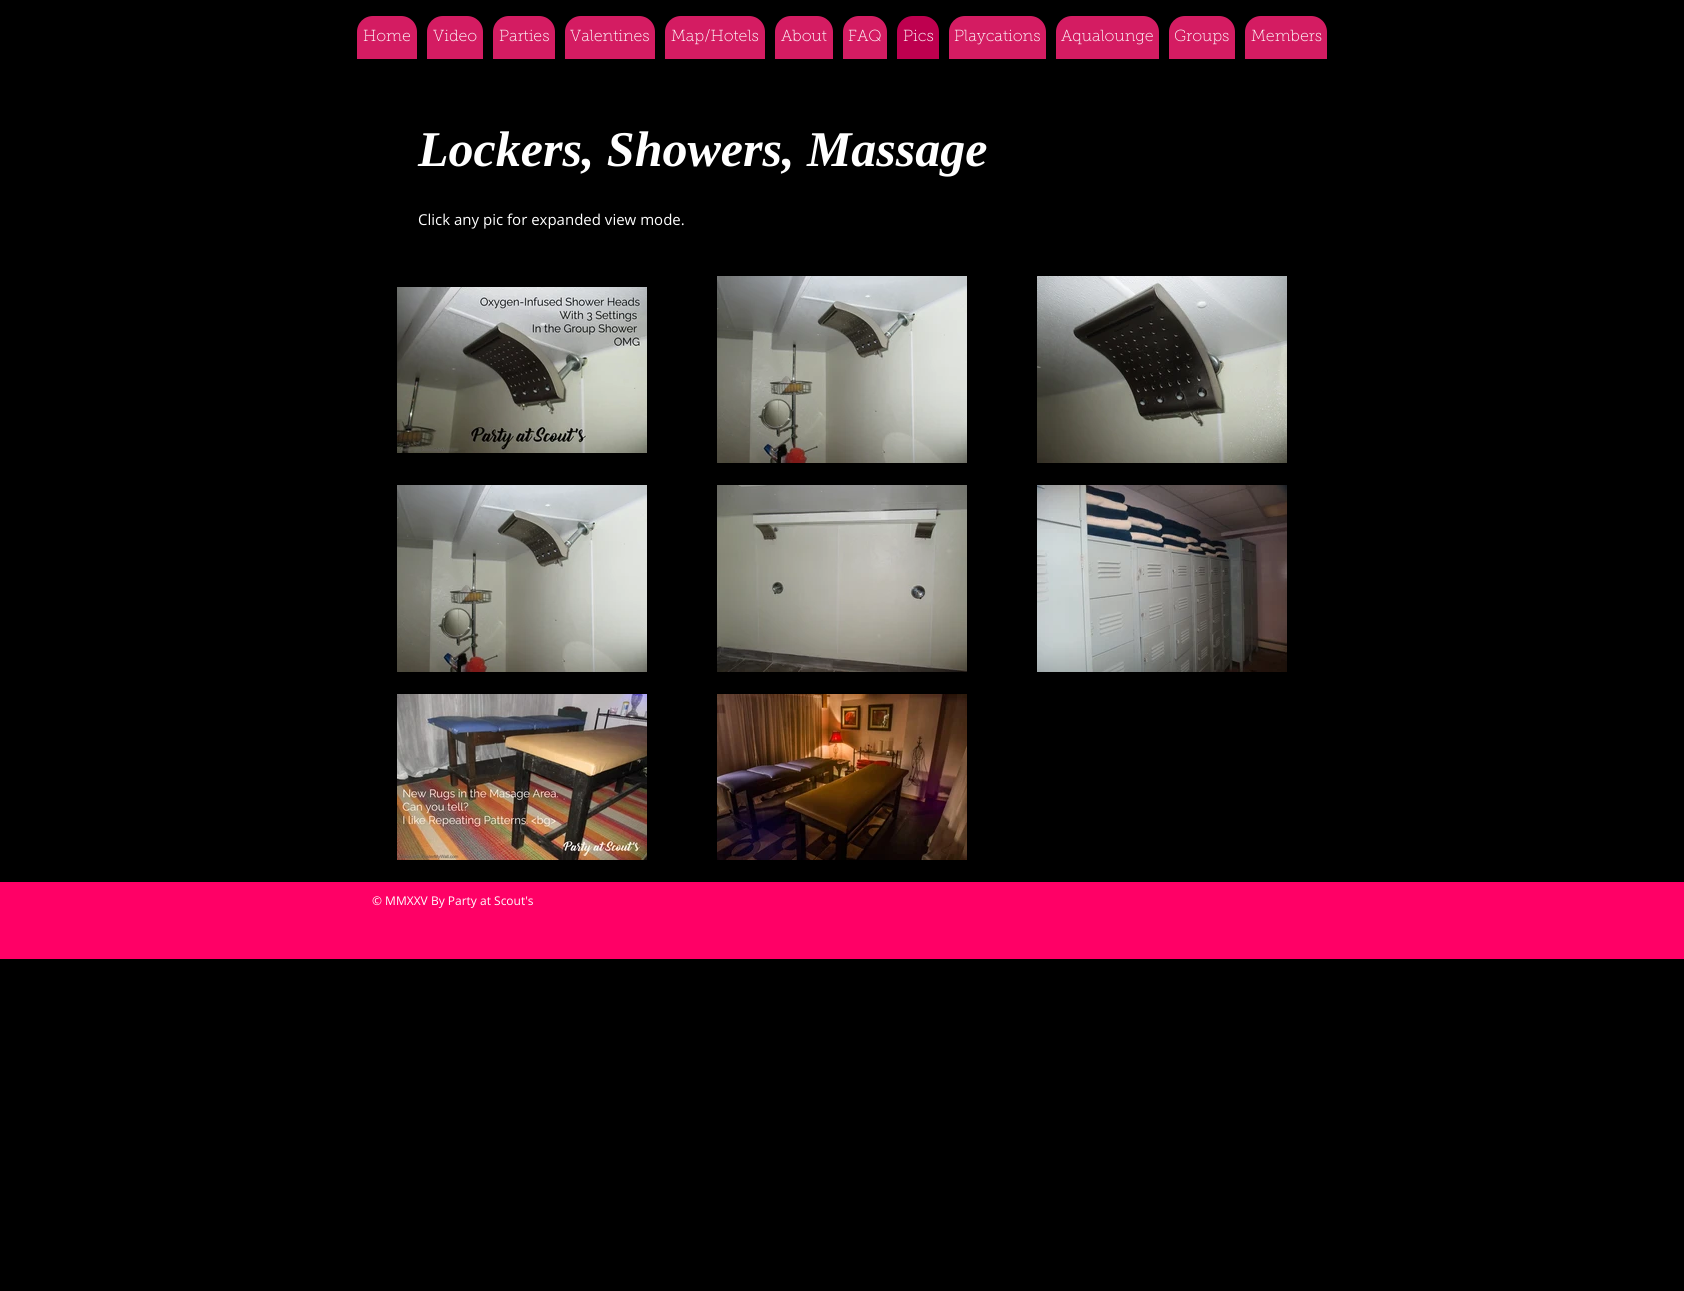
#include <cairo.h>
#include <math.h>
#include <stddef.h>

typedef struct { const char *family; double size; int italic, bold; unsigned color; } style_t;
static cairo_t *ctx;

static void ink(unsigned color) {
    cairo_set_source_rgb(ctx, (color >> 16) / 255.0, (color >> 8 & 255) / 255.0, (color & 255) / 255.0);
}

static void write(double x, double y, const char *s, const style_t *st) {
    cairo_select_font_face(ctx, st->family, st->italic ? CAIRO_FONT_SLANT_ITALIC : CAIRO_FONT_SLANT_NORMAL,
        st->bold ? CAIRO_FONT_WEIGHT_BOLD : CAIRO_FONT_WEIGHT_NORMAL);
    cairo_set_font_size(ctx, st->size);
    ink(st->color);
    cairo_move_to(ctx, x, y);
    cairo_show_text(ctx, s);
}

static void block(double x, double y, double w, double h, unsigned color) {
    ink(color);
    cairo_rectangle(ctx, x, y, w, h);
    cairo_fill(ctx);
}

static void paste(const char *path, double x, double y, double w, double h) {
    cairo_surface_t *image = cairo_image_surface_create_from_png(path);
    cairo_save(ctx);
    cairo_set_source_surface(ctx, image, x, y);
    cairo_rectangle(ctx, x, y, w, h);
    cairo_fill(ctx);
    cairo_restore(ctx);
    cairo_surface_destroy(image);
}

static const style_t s1 = {"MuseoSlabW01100 Thin", 16, 0, 0, 0xffffff};
static const style_t s2 = {"Liberation Serif", 50, 1, 1, 0xffffff};
static const style_t s3 = {"Open Sans", 15, 0, 0, 0xffffff};
static const style_t s4 = {"Open Sans", 12, 0, 0, 0xffffff};

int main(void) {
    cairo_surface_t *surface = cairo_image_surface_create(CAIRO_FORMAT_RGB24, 1684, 1291);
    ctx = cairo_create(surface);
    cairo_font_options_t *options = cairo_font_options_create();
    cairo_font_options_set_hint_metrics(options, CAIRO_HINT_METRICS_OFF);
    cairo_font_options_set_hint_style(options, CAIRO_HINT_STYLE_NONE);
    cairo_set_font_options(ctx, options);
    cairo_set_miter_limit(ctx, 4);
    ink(0x000000);
    cairo_paint(ctx);
    ink(0xd41c62);
    cairo_new_path(ctx);
    cairo_move_to(ctx, 373, 16);
    cairo_line_to(ctx, 401, 16);
    cairo_curve_to(ctx, 410, 16, 417, 23, 417, 32);
    cairo_line_to(ctx, 417, 59);
    cairo_line_to(ctx, 357, 59);
    cairo_line_to(ctx, 357, 32);
    cairo_curve_to(ctx, 357, 23, 364, 16, 373, 16);
    cairo_close_path(ctx);
    cairo_fill(ctx);
    write(363, 41, "Home", &s1);
    ink(0xd41c62);
    cairo_new_path(ctx);
    cairo_move_to(ctx, 443, 16);
    cairo_line_to(ctx, 467, 16);
    cairo_curve_to(ctx, 476, 16, 483, 23, 483, 32);
    cairo_line_to(ctx, 483, 59);
    cairo_line_to(ctx, 427, 59);
    cairo_line_to(ctx, 427, 32);
    cairo_curve_to(ctx, 427, 23, 434, 16, 443, 16);
    cairo_close_path(ctx);
    cairo_fill(ctx);
    write(433, 41, "Video", &s1);
    ink(0xd41c62);
    cairo_new_path(ctx);
    cairo_move_to(ctx, 509, 16);
    cairo_line_to(ctx, 539, 16);
    cairo_curve_to(ctx, 548, 16, 555, 23, 555, 32);
    cairo_line_to(ctx, 555, 59);
    cairo_line_to(ctx, 493, 59);
    cairo_line_to(ctx, 493, 32);
    cairo_curve_to(ctx, 493, 23, 500, 16, 509, 16);
    cairo_close_path(ctx);
    cairo_fill(ctx);
    write(499, 41, "Parties", &s1);
    ink(0xd41c62);
    cairo_new_path(ctx);
    cairo_move_to(ctx, 581, 16);
    cairo_line_to(ctx, 639, 16);
    cairo_curve_to(ctx, 648, 16, 655, 23, 655, 32);
    cairo_line_to(ctx, 655, 59);
    cairo_line_to(ctx, 565, 59);
    cairo_line_to(ctx, 565, 32);
    cairo_curve_to(ctx, 565, 23, 572, 16, 581, 16);
    cairo_close_path(ctx);
    cairo_fill(ctx);
    write(570, 41, "Valentines", &s1);
    ink(0xd41c62);
    cairo_new_path(ctx);
    cairo_move_to(ctx, 681, 16);
    cairo_line_to(ctx, 749, 16);
    cairo_curve_to(ctx, 758, 16, 765, 23, 765, 32);
    cairo_line_to(ctx, 765, 59);
    cairo_line_to(ctx, 665, 59);
    cairo_line_to(ctx, 665, 32);
    cairo_curve_to(ctx, 665, 23, 672, 16, 681, 16);
    cairo_close_path(ctx);
    cairo_fill(ctx);
    write(671, 41, "Map/Hotels", &s1);
    ink(0xd41c62);
    cairo_new_path(ctx);
    cairo_move_to(ctx, 791, 16);
    cairo_line_to(ctx, 817, 16);
    cairo_curve_to(ctx, 826, 16, 833, 23, 833, 32);
    cairo_line_to(ctx, 833, 59);
    cairo_line_to(ctx, 775, 59);
    cairo_line_to(ctx, 775, 32);
    cairo_curve_to(ctx, 775, 23, 782, 16, 791, 16);
    cairo_close_path(ctx);
    cairo_fill(ctx);
    write(781, 41, "About", &s1);
    ink(0xd41c62);
    cairo_new_path(ctx);
    cairo_move_to(ctx, 859, 16);
    cairo_line_to(ctx, 871, 16);
    cairo_curve_to(ctx, 880, 16, 887, 23, 887, 32);
    cairo_line_to(ctx, 887, 59);
    cairo_line_to(ctx, 843, 59);
    cairo_line_to(ctx, 843, 32);
    cairo_curve_to(ctx, 843, 23, 850, 16, 859, 16);
    cairo_close_path(ctx);
    cairo_fill(ctx);
    write(848, 41, "FAQ", &s1);
    ink(0xbe004f);
    cairo_new_path(ctx);
    cairo_move_to(ctx, 913, 16);
    cairo_line_to(ctx, 923, 16);
    cairo_curve_to(ctx, 932, 16, 939, 23, 939, 32);
    cairo_line_to(ctx, 939, 59);
    cairo_line_to(ctx, 897, 59);
    cairo_line_to(ctx, 897, 32);
    cairo_curve_to(ctx, 897, 23, 904, 16, 913, 16);
    cairo_close_path(ctx);
    cairo_fill(ctx);
    write(903, 41, "Pics", &s1);
    ink(0xd41c62);
    cairo_new_path(ctx);
    cairo_move_to(ctx, 965, 16);
    cairo_line_to(ctx, 1030, 16);
    cairo_curve_to(ctx, 1039, 16, 1046, 23, 1046, 32);
    cairo_line_to(ctx, 1046, 59);
    cairo_line_to(ctx, 949, 59);
    cairo_line_to(ctx, 949, 32);
    cairo_curve_to(ctx, 949, 23, 956, 16, 965, 16);
    cairo_close_path(ctx);
    cairo_fill(ctx);
    write(954, 41, "Playcations", &s1);
    ink(0xd41c62);
    cairo_new_path(ctx);
    cairo_move_to(ctx, 1072, 16);
    cairo_line_to(ctx, 1143, 16);
    cairo_curve_to(ctx, 1152, 16, 1159, 23, 1159, 32);
    cairo_line_to(ctx, 1159, 59);
    cairo_line_to(ctx, 1056, 59);
    cairo_line_to(ctx, 1056, 32);
    cairo_curve_to(ctx, 1056, 23, 1063, 16, 1072, 16);
    cairo_close_path(ctx);
    cairo_fill(ctx);
    write(1061, 41, "Aqualounge", &s1);
    ink(0xd41c62);
    cairo_new_path(ctx);
    cairo_move_to(ctx, 1185, 16);
    cairo_line_to(ctx, 1219, 16);
    cairo_curve_to(ctx, 1228, 16, 1235, 23, 1235, 32);
    cairo_line_to(ctx, 1235, 59);
    cairo_line_to(ctx, 1169, 59);
    cairo_line_to(ctx, 1169, 32);
    cairo_curve_to(ctx, 1169, 23, 1176, 16, 1185, 16);
    cairo_close_path(ctx);
    cairo_fill(ctx);
    write(1174, 41, "Groups", &s1);
    ink(0xd41c62);
    cairo_new_path(ctx);
    cairo_move_to(ctx, 1261, 16);
    cairo_line_to(ctx, 1311, 16);
    cairo_curve_to(ctx, 1320, 16, 1327, 23, 1327, 32);
    cairo_line_to(ctx, 1327, 59);
    cairo_line_to(ctx, 1245, 59);
    cairo_line_to(ctx, 1245, 32);
    cairo_curve_to(ctx, 1245, 23, 1252, 16, 1261, 16);
    cairo_close_path(ctx);
    cairo_fill(ctx);
    write(1251, 41, "Members", &s1);
    write(418, 166, "Lockers, Showers, Massage", &s2);
    write(418, 225, "Click any pic for expanded view mode.", &s3);
    paste("pic1.png", 397, 287, 250, 166);
    paste("pic2.png", 717, 276, 250, 187);
    paste("pic3.png", 1037, 276, 250, 187);
    paste("pic2.png", 397, 485, 250, 187);
    paste("pic4.png", 717, 485, 250, 187);
    paste("pic5.png", 1037, 485, 250, 187);
    paste("pic6.png", 397, 694, 250, 166);
    paste("pic7.png", 717, 694, 250, 166);
    block(0, 882, 1684, 77, 0xff0066);
    write(372, 905, "© MMXXV By Party at Scout's", &s4);
    cairo_surface_write_to_png(surface, "screenshot.png");
    cairo_font_options_destroy(options);
    cairo_destroy(ctx);
    cairo_surface_destroy(surface);
    return 0;
}
